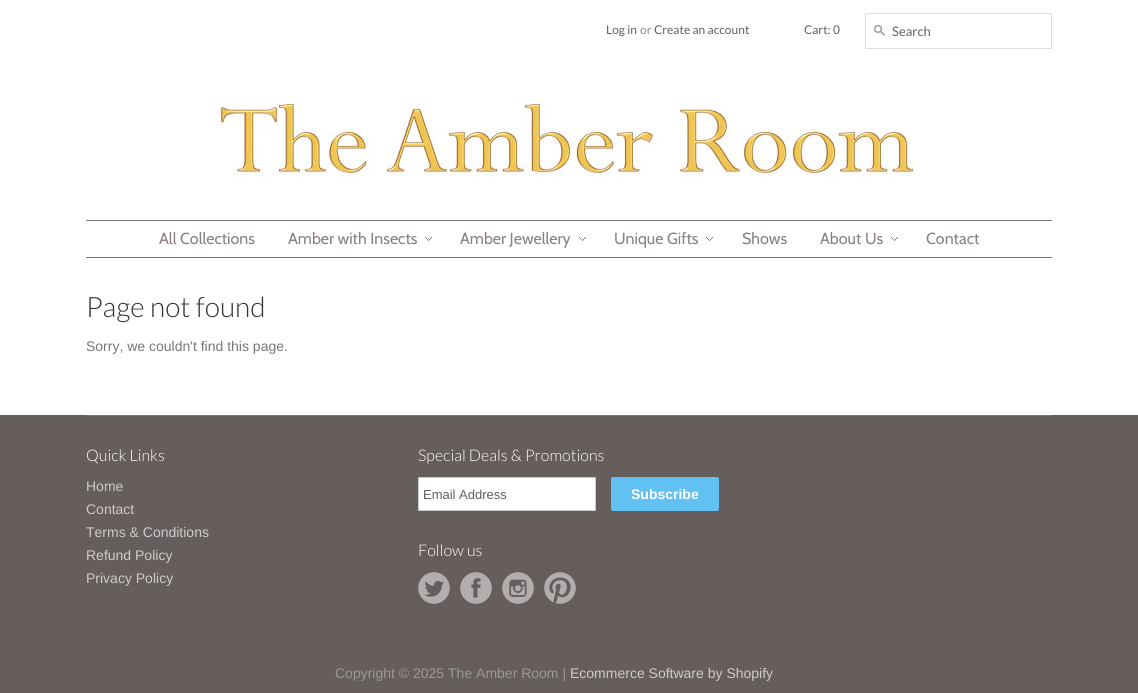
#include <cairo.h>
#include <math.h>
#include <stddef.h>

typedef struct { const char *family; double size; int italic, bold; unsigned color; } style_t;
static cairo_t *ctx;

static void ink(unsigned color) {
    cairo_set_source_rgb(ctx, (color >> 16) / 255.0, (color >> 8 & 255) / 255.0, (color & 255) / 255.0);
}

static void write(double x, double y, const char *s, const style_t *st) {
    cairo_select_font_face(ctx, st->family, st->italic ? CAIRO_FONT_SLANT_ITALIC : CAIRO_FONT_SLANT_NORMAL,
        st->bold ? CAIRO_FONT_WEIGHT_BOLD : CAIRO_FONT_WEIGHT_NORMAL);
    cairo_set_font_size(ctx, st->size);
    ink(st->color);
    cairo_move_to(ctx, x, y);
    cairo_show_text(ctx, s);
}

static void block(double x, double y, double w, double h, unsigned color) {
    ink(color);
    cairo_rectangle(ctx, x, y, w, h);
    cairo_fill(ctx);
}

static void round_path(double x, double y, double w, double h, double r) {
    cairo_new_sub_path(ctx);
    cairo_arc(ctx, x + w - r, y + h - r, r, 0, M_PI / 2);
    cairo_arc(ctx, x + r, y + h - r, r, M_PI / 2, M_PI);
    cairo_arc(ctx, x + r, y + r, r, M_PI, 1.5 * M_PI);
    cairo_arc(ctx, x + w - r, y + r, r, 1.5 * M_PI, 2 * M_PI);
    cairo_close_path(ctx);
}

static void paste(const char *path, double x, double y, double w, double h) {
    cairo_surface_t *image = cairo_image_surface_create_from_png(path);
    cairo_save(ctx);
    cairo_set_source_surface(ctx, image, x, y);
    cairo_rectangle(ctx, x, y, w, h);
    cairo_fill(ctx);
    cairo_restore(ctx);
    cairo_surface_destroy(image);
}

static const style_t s1 = {"Lato", 12, 0, 0, 0x665d5d};
static const style_t s2 = {"Lato", 12, 0, 0, 0x888888};
static const style_t s3 = {"Lato", 13, 0, 0, 0x665d5d};
static const style_t s4 = {"Cabin", 16, 0, 0, 0x8a8080};
static const style_t s5 = {"Lato Light", 28, 0, 0, 0x333333};
static const style_t s6 = {"Liberation Sans", 14, 0, 0, 0x777777};
static const style_t s7 = {"Lato Light", 16, 0, 0, 0xffffff};
static const style_t s8 = {"Liberation Sans", 14, 0, 0, 0xcccccc};
static const style_t s9 = {"Liberation Sans", 13, 0, 0, 0x665d5d};
static const style_t s10 = {"Liberation Sans", 14, 0, 1, 0xffffff};
static const style_t s11 = {"Liberation Sans", 14, 0, 0, 0x999999};

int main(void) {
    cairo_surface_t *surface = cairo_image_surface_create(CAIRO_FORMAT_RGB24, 1138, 693);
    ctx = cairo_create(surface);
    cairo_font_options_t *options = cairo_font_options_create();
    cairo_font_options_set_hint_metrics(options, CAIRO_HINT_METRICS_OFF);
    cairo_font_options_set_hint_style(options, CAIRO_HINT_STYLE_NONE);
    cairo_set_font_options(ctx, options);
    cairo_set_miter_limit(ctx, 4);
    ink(0xffffff);
    cairo_paint(ctx);
    write(606, 34, "Log in", &s1);
    write(640, 34, "or", &s2);
    write(654, 34, "Create an account", &s1);
    write(804, 34, "Cart: 0", &s1);
    round_path(865.5, 13.5, 186, 35, 0.5);
    ink(0xdddddd);
    cairo_set_line_width(ctx, 1);
    cairo_stroke(ctx);
    paste("pic1.png", 874, 25, 11, 11);
    write(892, 36, "Search", &s3);
    paste("pic2.png", 219, 98, 696, 80);
    block(86, 220, 966, 1, 0x777777);
    block(86, 257, 966, 1, 0x777777);
    write(159, 244, "All Collections", &s4);
    paste("pic3.png", 425, 237, 7, 4);
    write(288, 244, "Amber with Insects", &s4);
    paste("pic3.png", 579, 237, 7, 4);
    write(460, 244, "Amber Jewellery", &s4);
    paste("pic3.png", 706, 237, 7, 4);
    write(614, 244, "Unique Gifts", &s4);
    write(742, 244, "Shows", &s4);
    paste("pic3.png", 891, 237, 7, 4);
    write(820, 244, "About Us", &s4);
    write(926, 244, "Contact", &s4);
    write(86, 317, "Page not found", &s5);
    write(86, 351, "Sorry, we couldn't find this page.", &s6);
    block(0, 415, 1138, 278, 0x665d5d);
    block(86, 415, 966, 1, 0x777777);
    write(86, 461, "Quick Links", &s7);
    write(86, 491, "Home", &s8);
    write(86, 514, "Contact", &s8);
    write(86, 537, "Terms & Conditions", &s8);
    write(86, 560, "Refund Policy", &s8);
    write(86, 583, "Privacy Policy", &s8);
    write(418, 461, "Special Deals & Promotions", &s7);
    round_path(418.5, 477.5, 177, 33, 0.5);
    cairo_fill_preserve(ctx);
    ink(0xcccccc);
    cairo_stroke(ctx);
    write(423, 499, "Email Address", &s9);
    ink(0x60c1f2);
    round_path(611, 477, 108, 34, 2);
    cairo_fill(ctx);
    write(631, 499, "Subscribe", &s10);
    write(418, 556, "Follow us", &s7);
    paste("pic4.png", 418, 572, 32, 32);
    paste("pic5.png", 460, 572, 32, 32);
    paste("pic6.png", 502, 572, 32, 32);
    paste("pic7.png", 544, 572, 32, 32);
    write(335, 678, "Copyright © 2025 The Amber Room |", &s11);
    write(570, 678, "Ecommerce Software by Shopify", &s8);
    cairo_surface_write_to_png(surface, "screenshot.png");
    cairo_font_options_destroy(options);
    cairo_destroy(ctx);
    cairo_surface_destroy(surface);
    return 0;
}
